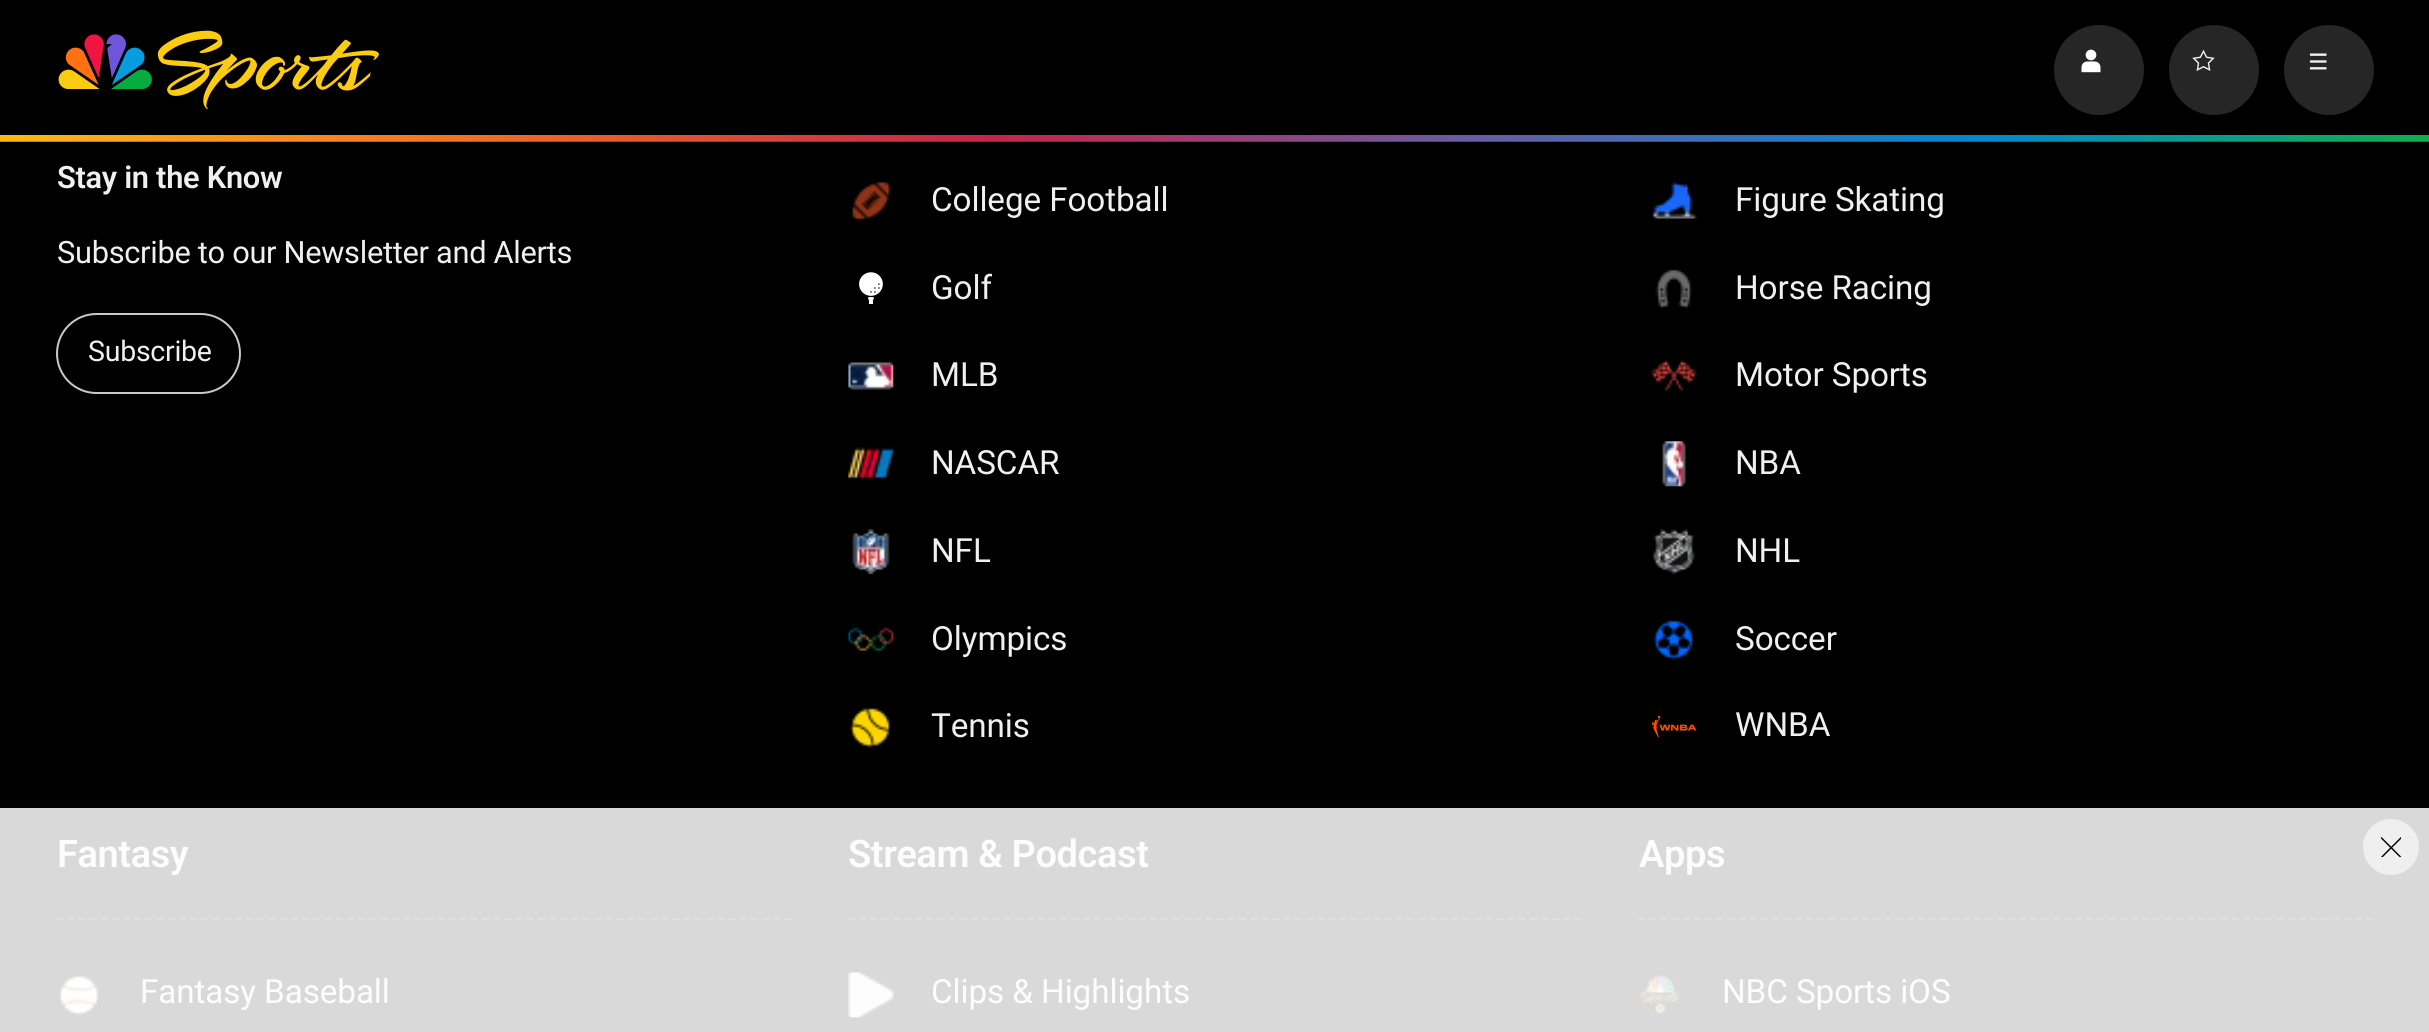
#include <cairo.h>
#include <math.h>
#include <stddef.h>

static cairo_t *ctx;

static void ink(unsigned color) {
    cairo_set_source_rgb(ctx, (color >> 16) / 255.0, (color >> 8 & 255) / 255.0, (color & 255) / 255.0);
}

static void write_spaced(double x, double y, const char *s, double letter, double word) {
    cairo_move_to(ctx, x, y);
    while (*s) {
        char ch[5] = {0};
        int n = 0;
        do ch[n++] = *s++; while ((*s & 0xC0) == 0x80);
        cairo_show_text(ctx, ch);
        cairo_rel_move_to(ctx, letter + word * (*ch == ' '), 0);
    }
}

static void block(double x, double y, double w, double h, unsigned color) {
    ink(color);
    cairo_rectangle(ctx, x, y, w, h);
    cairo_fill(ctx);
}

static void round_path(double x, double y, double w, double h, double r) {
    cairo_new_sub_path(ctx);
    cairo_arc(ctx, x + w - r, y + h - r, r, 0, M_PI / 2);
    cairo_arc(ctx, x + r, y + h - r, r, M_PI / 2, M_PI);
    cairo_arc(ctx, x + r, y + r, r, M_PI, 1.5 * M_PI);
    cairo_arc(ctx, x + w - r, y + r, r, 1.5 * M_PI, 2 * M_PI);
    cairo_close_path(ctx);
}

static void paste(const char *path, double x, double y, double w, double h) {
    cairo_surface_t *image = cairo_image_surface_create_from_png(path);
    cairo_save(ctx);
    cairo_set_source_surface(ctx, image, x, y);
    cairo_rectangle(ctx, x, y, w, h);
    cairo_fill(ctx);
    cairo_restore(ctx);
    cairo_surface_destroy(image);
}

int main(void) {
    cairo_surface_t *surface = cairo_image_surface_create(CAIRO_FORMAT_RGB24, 2429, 1032);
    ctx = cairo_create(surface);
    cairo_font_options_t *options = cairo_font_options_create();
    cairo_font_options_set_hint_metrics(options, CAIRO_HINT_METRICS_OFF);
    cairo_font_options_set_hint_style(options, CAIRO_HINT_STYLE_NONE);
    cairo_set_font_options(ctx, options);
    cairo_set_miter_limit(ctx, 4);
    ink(0x000000);
    cairo_paint(ctx);
    paste("pic1.png", 58, 30, 321, 79);
    ink(0x262626);
    cairo_arc(ctx, 2099, 70, 45, 0, 2 * M_PI);
    cairo_fill(ctx);
    paste("pic2.png", 2081, 49, 20, 24);
    cairo_arc(ctx, 2214, 70, 45, 0, 2 * M_PI);
    cairo_fill(ctx);
    paste("pic3.png", 2192, 49, 23, 22);
    cairo_arc(ctx, 2329, 70, 45, 0, 2 * M_PI);
    cairo_fill(ctx);
    paste("pic4.png", 2309, 53, 18, 17);
    paste("pic5.png", 0, 135, 2429, 7);
    block(0, 808, 2429, 224, 0xd9d9d9);
    cairo_select_font_face(ctx, "Roboto SemiBold", CAIRO_FONT_SLANT_NORMAL, CAIRO_FONT_WEIGHT_NORMAL);
    cairo_set_font_size(ctx, 30.8);
    ink(0xf0f0f0);
    write_spaced(57, 188, "Stay in the Know", -0.3, 0);
    cairo_select_font_face(ctx, "Roboto", CAIRO_FONT_SLANT_NORMAL, CAIRO_FONT_WEIGHT_NORMAL);
    write_spaced(57, 263, "Subscribe to our Newsletter and Alerts", -0.3, 0);
    round_path(57, 314, 183, 79, 39.5);
    ink(0xc9c9c9);
    cairo_stroke(ctx);
    cairo_set_font_size(ctx, 28.5);
    ink(0xf0f0f0);
    write_spaced(88, 361, "Subscribe", -0.25, 0);
    paste("pic6.png", 852, 182, 40, 40);
    cairo_set_font_size(ctx, 33.25);
    write_spaced(931, 211, "College Football", -0.1, 0);
    paste("pic7.png", 1651, 182, 46, 38);
    write_spaced(1735, 211, "Figure Skating", -0.1, 0);
    paste("pic8.png", 859, 272, 24, 32);
    write_spaced(931, 299, "Golf", -0.1, 0);
    paste("pic9.png", 1655, 269, 38, 40);
    write_spaced(1735, 299, "Horse Racing", -0.1, 0);
    paste("pic10.png", 848, 362, 46, 28);
    write_spaced(931, 386, "MLB", -0.1, 0);
    paste("pic11.png", 1651, 359, 46, 34);
    write_spaced(1735, 386, "Motor Sports", -0.1, 0);
    paste("pic12.png", 848, 447, 46, 33);
    write_spaced(931, 474, "NASCAR", -0.1, 0);
    paste("pic13.png", 1662, 441, 24, 46);
    write_spaced(1735, 474, "NBA", -0.1, 0);
    paste("pic14.png", 852, 529, 38, 45);
    write_spaced(931, 562, "NFL", -0.1, 0);
    paste("pic15.png", 1653, 529, 42, 45);
    write_spaced(1735, 562, "NHL", -0.1, 0);
    paste("pic16.png", 848, 627, 46, 25);
    write_spaced(931, 650, "Olympics", -0.1, 0);
    paste("pic17.png", 1653, 620, 40, 40);
    write_spaced(1735, 650, "Soccer", -0.1, 0);
    paste("pic18.png", 850, 708, 40, 40);
    write_spaced(931, 737, "Tennis", -0.1, 0);
    paste("pic19.png", 1652, 716, 45, 22);
    write_spaced(1735, 736, "WNBA", -0.1, 0);
    cairo_new_path(ctx);
    cairo_move_to(ctx, 56, 919);
    cairo_line_to(ctx, 792, 919);
    ink(0xe0e0e0);
    cairo_set_line_width(ctx, 2.2);
    cairo_set_dash(ctx, (double[]){6.75, 4.46}, 2, 0);
    cairo_stroke(ctx);
    cairo_select_font_face(ctx, "Roboto SemiBold", CAIRO_FONT_SLANT_NORMAL, CAIRO_FONT_WEIGHT_NORMAL);
    cairo_set_font_size(ctx, 38);
    ink(0xfdfdfd);
    write_spaced(57, 867, "Fantasy", -0.4, 0);
    paste("pic20.png", 60, 976, 40, 40);
    cairo_select_font_face(ctx, "Roboto", CAIRO_FONT_SLANT_NORMAL, CAIRO_FONT_WEIGHT_NORMAL);
    cairo_set_font_size(ctx, 33.25);
    write_spaced(140, 1003, "Fantasy Baseball", -0.1, 0);
    cairo_new_path(ctx);
    cairo_move_to(ctx, 848, 919);
    cairo_line_to(ctx, 1582, 919);
    ink(0xe0e0e0);
    cairo_set_dash(ctx, (double[]){6.75, 4.43}, 2, 0);
    cairo_stroke(ctx);
    cairo_select_font_face(ctx, "Roboto SemiBold", CAIRO_FONT_SLANT_NORMAL, CAIRO_FONT_WEIGHT_NORMAL);
    cairo_set_font_size(ctx, 38);
    ink(0xfdfdfd);
    write_spaced(848, 867, "Stream & Podcast", -0.4, 0);
    paste("pic21.png", 848, 972, 46, 46);
    cairo_select_font_face(ctx, "Roboto", CAIRO_FONT_SLANT_NORMAL, CAIRO_FONT_WEIGHT_NORMAL);
    cairo_set_font_size(ctx, 33.25);
    write_spaced(931, 1003, "Clips & Highlights", -0.1, 0);
    cairo_new_path(ctx);
    cairo_move_to(ctx, 1638, 919);
    cairo_line_to(ctx, 2374, 919);
    ink(0xe0e0e0);
    cairo_set_dash(ctx, (double[]){6.75, 4.46}, 2, 0);
    cairo_stroke(ctx);
    cairo_select_font_face(ctx, "Roboto SemiBold", CAIRO_FONT_SLANT_NORMAL, CAIRO_FONT_WEIGHT_NORMAL);
    cairo_set_font_size(ctx, 38);
    ink(0xfdfdfd);
    write_spaced(1639, 867, "Apps", -0.4, 0);
    paste("pic22.png", 1638, 972, 45, 45);
    cairo_select_font_face(ctx, "Roboto", CAIRO_FONT_SLANT_NORMAL, CAIRO_FONT_WEIGHT_NORMAL);
    cairo_set_font_size(ctx, 33.25);
    write_spaced(1722, 1003, "NBC Sports iOS", -0.1, 0);
    ink(0xefefef);
    cairo_new_path(ctx);
    cairo_arc(ctx, 2391, 847, 28, 0, 2 * M_PI);
    cairo_fill(ctx);
    paste("pic23.png", 2381, 837, 20, 20);
    cairo_surface_write_to_png(surface, "screenshot.png");
    cairo_font_options_destroy(options);
    cairo_destroy(ctx);
    cairo_surface_destroy(surface);
    return 0;
}
